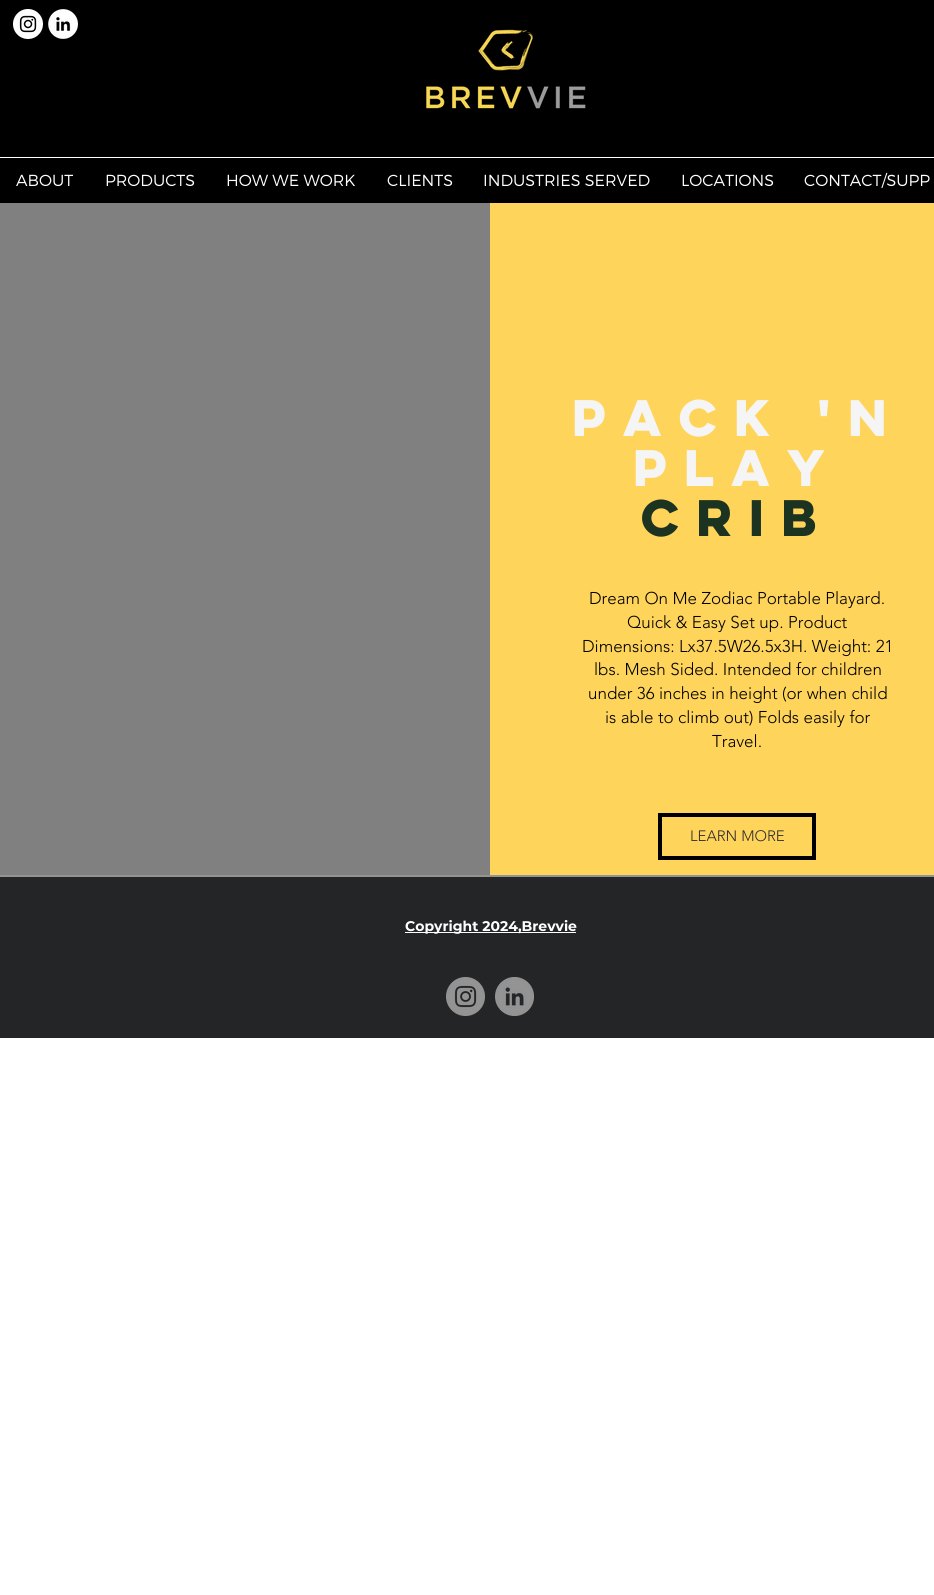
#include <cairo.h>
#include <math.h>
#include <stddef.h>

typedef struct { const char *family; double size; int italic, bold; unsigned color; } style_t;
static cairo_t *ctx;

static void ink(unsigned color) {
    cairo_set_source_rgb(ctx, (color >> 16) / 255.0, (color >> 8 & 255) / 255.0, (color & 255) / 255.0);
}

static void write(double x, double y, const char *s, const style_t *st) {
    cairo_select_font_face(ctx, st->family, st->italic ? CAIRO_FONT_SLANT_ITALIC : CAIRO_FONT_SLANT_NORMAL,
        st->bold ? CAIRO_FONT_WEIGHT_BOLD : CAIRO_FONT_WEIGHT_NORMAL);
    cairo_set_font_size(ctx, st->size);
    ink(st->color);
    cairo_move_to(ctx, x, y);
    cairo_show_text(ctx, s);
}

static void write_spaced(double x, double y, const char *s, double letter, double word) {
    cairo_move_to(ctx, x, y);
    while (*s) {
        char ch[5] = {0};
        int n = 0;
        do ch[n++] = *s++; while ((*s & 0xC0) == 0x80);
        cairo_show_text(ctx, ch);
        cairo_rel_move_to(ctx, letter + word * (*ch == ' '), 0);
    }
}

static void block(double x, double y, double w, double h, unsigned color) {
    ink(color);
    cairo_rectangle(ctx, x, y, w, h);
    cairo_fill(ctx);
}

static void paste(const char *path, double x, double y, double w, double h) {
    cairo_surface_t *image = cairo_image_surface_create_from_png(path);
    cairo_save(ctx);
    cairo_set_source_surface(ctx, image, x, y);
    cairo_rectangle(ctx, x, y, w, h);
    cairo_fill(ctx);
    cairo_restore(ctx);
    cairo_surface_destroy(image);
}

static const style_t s1 = {"Montserrat Light", 16, 0, 0, 0xffffff};
static const style_t s2 = {"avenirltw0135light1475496 Light", 17, 0, 0, 0x000000};
static const style_t s3 = {"avenirltw0135light1475496 Light", 15, 0, 0, 0x2f2e2e};
static const style_t s4 = {"Montserrat", 14, 0, 1, 0xffffff};

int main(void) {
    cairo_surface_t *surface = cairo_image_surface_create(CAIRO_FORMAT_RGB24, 934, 1595);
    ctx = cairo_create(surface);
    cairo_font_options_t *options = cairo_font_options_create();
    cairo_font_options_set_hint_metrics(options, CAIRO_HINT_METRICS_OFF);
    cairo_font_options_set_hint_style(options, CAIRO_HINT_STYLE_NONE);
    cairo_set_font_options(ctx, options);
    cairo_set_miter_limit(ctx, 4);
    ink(0xffffff);
    cairo_paint(ctx);
    block(0, 0, 934, 203, 0x000000);
    paste("pic1.png", 13, 9, 30, 30);
    paste("pic2.png", 48, 9, 30, 30);
    paste("pic3.png", 426, 29, 160, 80);
    block(0, 157, 934, 1, 0xffffff);
    write(16, 186, "ABOUT", &s1);
    write(105, 186, "PRODUCTS", &s1);
    write(226, 186, "HOW WE WORK", &s1);
    write(387, 186, "CLIENTS", &s1);
    write(483, 186, "INDUSTRIES SERVED", &s1);
    write(681, 186, "LOCATIONS", &s1);
    write(804, 186, "CONTACT/SUPP", &s1);
    block(0, 203, 490, 672, 0x808080);
    block(490, 203, 444, 672, 0xffd45a);
    cairo_select_font_face(ctx, "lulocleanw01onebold", CAIRO_FONT_SLANT_NORMAL, CAIRO_FONT_WEIGHT_BOLD);
    cairo_set_font_size(ctx, 46);
    ink(0xf5f5f5);
    write_spaced(572, 436, "pack 'n", 7, 0);
    write_spaced(633, 486, "play", 7, 0);
    ink(0x1b3320);
    write_spaced(641, 536, "crib", 7, 0);
    write(589, 604, "Dream On Me Zodiac Portable Playard.", &s2);
    write(627, 628, "Quick & Easy Set up. Product", &s2);
    write(582, 652, "Dimensions: Lx37.5W26.5x3H. Weight: 21", &s2);
    write(594, 675, "lbs. Mesh Sided. Intended for children", &s2);
    write(588, 699, "under 36 inches in height (or when child", &s2);
    write(605, 723, "is able to climb out) Folds easily for", &s2);
    write(712, 747, "Travel.", &s2);
    cairo_rectangle(ctx, 660, 815, 154, 43);
    cairo_set_line_width(ctx, 4);
    cairo_stroke(ctx);
    write(690, 841, "LEARN MORE", &s3);
    block(0, 877, 934, 161, 0x242526);
    block(0, 875, 934, 2, 0x939393);
    block(405, 932, 171, 1, 0xffffff);
    write(405, 931, "Copyright 2024,Brevvie", &s4);
    paste("pic4.png", 446, 977, 39, 39);
    paste("pic5.png", 495, 977, 39, 39);
    cairo_surface_write_to_png(surface, "screenshot.png");
    cairo_font_options_destroy(options);
    cairo_destroy(ctx);
    cairo_surface_destroy(surface);
    return 0;
}
